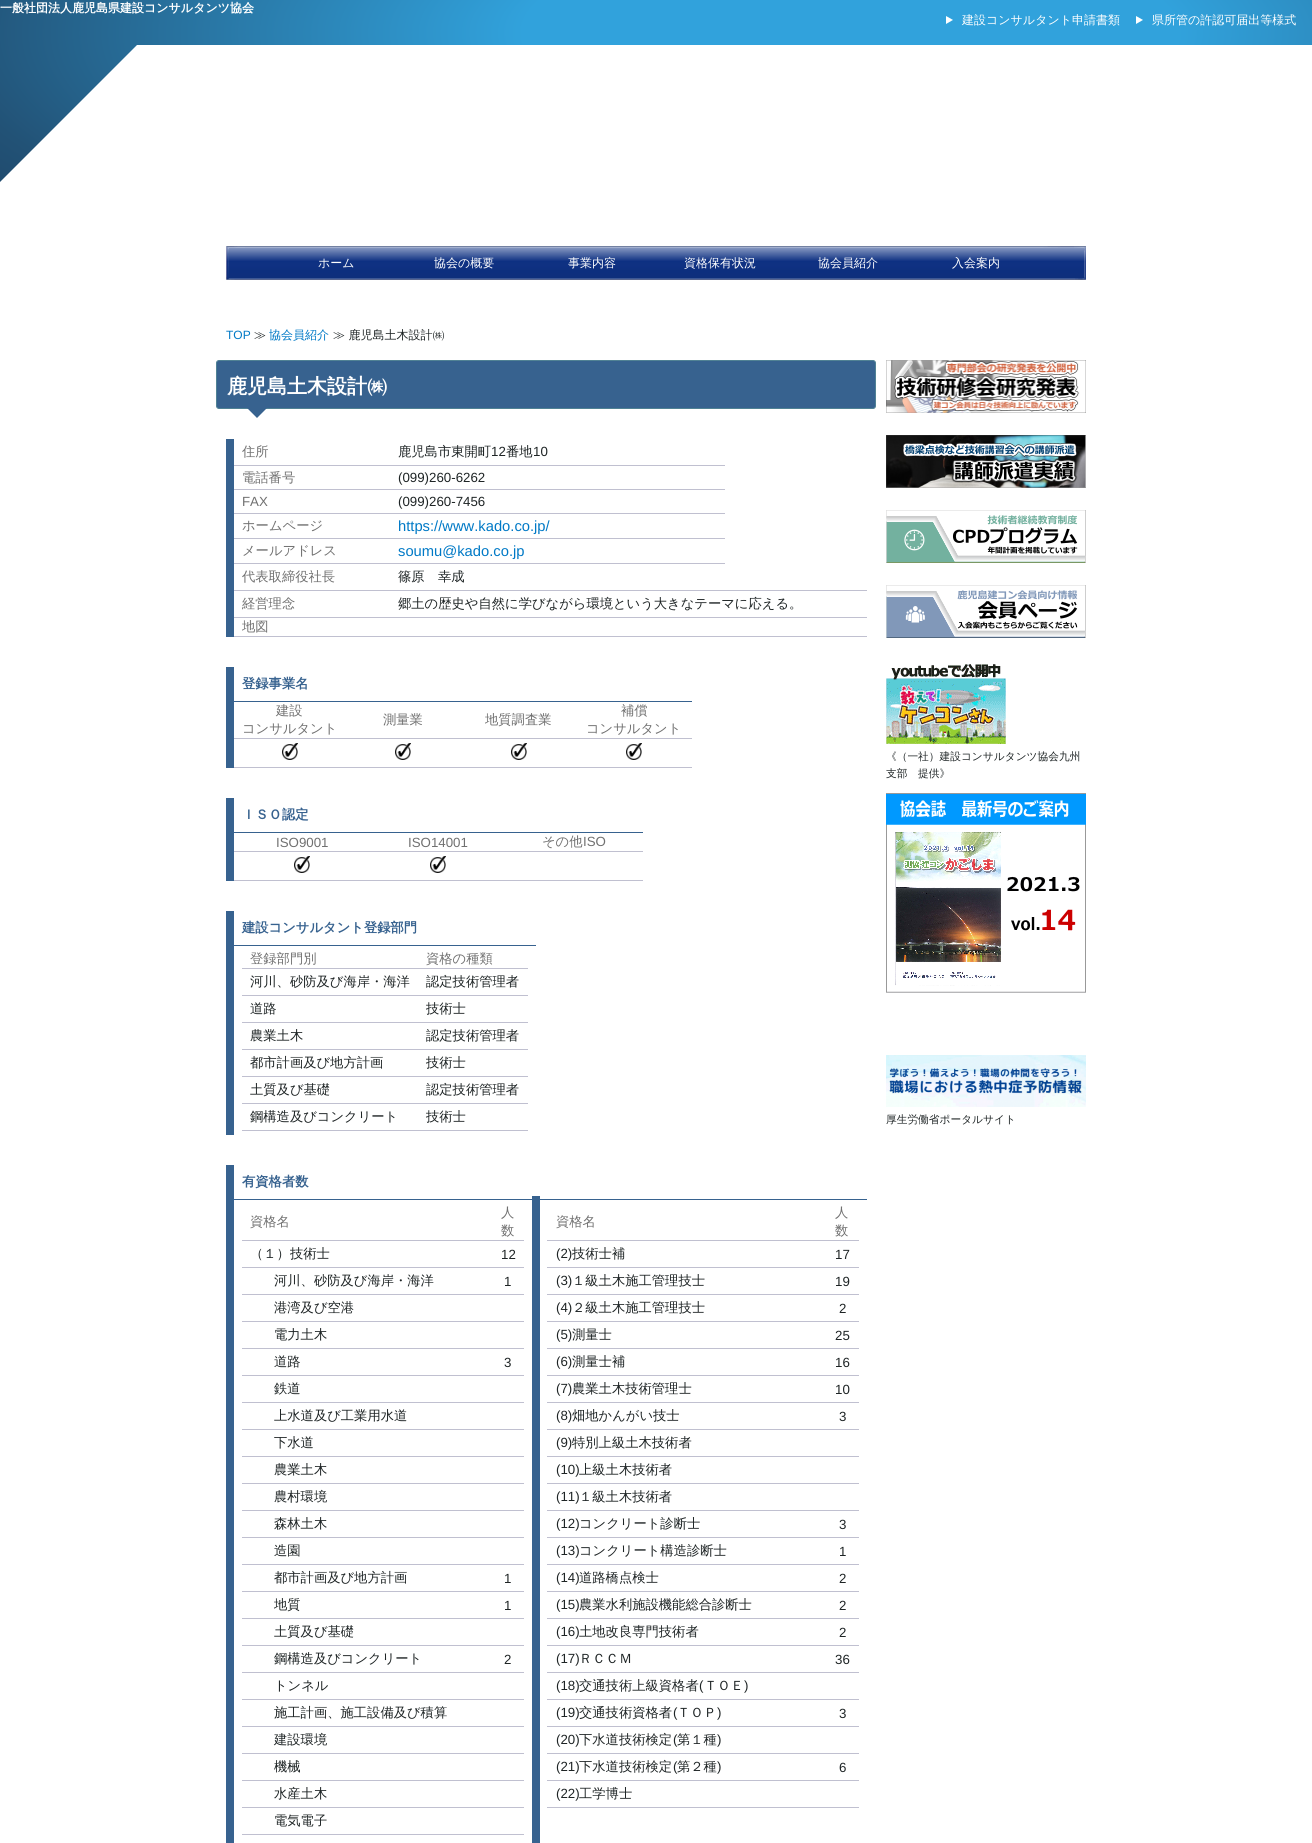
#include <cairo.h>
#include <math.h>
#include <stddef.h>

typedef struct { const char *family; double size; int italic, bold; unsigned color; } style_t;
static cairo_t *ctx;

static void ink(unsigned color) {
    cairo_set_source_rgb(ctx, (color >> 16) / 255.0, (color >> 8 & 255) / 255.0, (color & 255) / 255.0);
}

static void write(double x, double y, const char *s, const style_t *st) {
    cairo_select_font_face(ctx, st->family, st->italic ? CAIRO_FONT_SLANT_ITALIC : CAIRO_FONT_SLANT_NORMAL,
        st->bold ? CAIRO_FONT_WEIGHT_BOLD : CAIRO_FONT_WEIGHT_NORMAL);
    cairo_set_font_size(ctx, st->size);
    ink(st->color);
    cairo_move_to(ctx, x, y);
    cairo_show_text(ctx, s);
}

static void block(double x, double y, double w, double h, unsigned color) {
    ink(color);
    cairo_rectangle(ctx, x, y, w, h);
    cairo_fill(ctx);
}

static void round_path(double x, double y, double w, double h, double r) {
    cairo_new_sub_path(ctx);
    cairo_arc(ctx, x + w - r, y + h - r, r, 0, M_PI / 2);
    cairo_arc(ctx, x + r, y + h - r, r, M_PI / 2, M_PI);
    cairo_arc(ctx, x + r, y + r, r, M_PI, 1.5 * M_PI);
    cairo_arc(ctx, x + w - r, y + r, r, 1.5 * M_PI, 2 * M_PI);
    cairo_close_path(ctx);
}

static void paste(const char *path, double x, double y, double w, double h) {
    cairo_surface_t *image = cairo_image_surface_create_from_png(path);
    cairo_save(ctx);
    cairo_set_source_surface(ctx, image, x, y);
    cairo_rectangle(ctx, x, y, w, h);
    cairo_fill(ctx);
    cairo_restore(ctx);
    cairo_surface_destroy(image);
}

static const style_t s1 = {"WenQuanYi Zen Hei", 12, 0, 1, 0xffffff};
static const style_t s2 = {"WenQuanYi Zen Hei Medium", 12, 0, 0, 0xffffff};
static const style_t s3 = {"Liberation Sans", 12, 0, 0, 0x0079c6};
static const style_t s4 = {"WenQuanYi Zen Hei Medium", 12, 0, 0, 0x1e2425};
static const style_t s5 = {"WenQuanYi Zen Hei Medium", 12, 0, 0, 0x0079c6};
static const style_t s6 = {"WenQuanYi Zen Hei", 20, 0, 1, 0xffffff};
static const style_t s7 = {"WenQuanYi Zen Hei Medium", 13.3, 0, 0, 0x707070};
static const style_t s8 = {"WenQuanYi Zen Hei Medium", 13.3, 0, 0, 0x1e2425};
static const style_t s9 = {"Liberation Sans", 13.3, 0, 0, 0x1e2425};
static const style_t s10 = {"Liberation Sans", 13.3, 0, 0, 0x707070};
static const style_t s11 = {"Liberation Sans", 14.75, 0, 0, 0x0079c6};
static const style_t s12 = {"WenQuanYi Zen Hei", 13.3, 0, 1, 0x37628f};
static const style_t s13 = {"WenQuanYi Zen Hei Medium", 10.7, 0, 0, 0x1e2425};

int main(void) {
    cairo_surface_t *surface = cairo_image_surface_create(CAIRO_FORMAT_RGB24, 1312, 1843);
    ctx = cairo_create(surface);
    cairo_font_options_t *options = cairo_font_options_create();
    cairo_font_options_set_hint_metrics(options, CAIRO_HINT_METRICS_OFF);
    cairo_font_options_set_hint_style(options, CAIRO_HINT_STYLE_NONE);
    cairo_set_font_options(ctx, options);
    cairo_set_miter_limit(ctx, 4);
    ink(0xffffff);
    cairo_paint(ctx);
    paste("pic1.png", 0, 0, 1312, 182);
    write(0, 12, "一般社団法人鹿児島県建設コンサルタンツ協会", &s1);
    paste("pic2.png", 946, 16, 7, 8);
    write(962, 24, "建設コンサルタント申請書類", &s2);
    paste("pic2.png", 1136, 16, 7, 8);
    write(1152, 24, "県所管の許認可届出等様式", &s2);
    paste("pic3.png", 226, 246, 860, 34);
    write(318, 267, "ホーム", &s2);
    write(434, 267, "協会の概要", &s2);
    write(568, 267, "事業内容", &s2);
    write(684, 267, "資格保有状況", &s2);
    write(818, 267, "協会員紹介", &s2);
    write(952, 267, "入会案内", &s2);
    write(226, 339, "TOP", &s3);
    write(254, 339, "≫", &s4);
    write(269, 339, "協会員紹介", &s5);
    write(333, 339, "≫ 鹿児島土木設計㈱", &s4);
    ink(0x37628f);
    round_path(216.5, 360.5, 659, 48, 2.5);
    cairo_fill_preserve(ctx);
    ink(0x508294);
    cairo_set_line_width(ctx, 1);
    cairo_stroke(ctx);
    write(227, 393, "鹿児島土木設計㈱", &s6);
    ink(0x37628f);
    cairo_new_path(ctx);
    cairo_move_to(ctx, 247, 408);
    cairo_line_to(ctx, 267, 408);
    cairo_line_to(ctx, 257, 418);
    cairo_close_path(ctx);
    cairo_fill(ctx);
    block(230, 465, 495, 1, 0xc0c0d0);
    block(230, 489, 495, 1, 0xc0c0d0);
    block(230, 513, 495, 1, 0xc0c0d0);
    block(230, 538, 495, 1, 0xc0c0d0);
    block(230, 563, 495, 1, 0xc0c0d0);
    block(230, 590, 637, 1, 0xc0c0d0);
    block(230, 617, 637, 1, 0xc0c0d0);
    block(230, 636, 637, 1, 0xc0c0d0);
    block(226, 439, 8, 198, 0x37628f);
    write(242, 456, "住所", &s7);
    write(398, 456, "鹿児島市東開町", &s8);
    write(491, 456, "12", &s9);
    write(506, 456, "番地", &s8);
    write(533, 456, "10", &s9);
    write(242, 482, "電話番号", &s7);
    write(398, 482, "(099)260-6262", &s9);
    write(242, 506, "FAX", &s10);
    write(398, 506, "(099)260-7456", &s9);
    write(242, 530, "ホームページ", &s7);
    write(398, 531, "https://www.kado.co.jp/", &s11);
    write(242, 555, "メールアドレス", &s7);
    write(398, 556, "soumu@kado.co.jp", &s11);
    write(242, 581, "代表取締役社長", &s7);
    write(398, 581, "篠原　幸成", &s8);
    write(242, 608, "経営理念", &s7);
    write(398, 608, "郷土の歴史や自然に学びながら環境という大きなテーマに応える。", &s8);
    write(242, 631, "地図", &s7);
    block(230, 701, 462, 1, 0x37628f);
    block(230, 738, 462, 1, 0xc0c0d0);
    block(230, 767, 462, 1, 0xc0c0d0);
    block(226, 667, 8, 101, 0x37628f);
    write(242, 688, "登録事業名", &s12);
    write(276, 715, "建設", &s7);
    write(242, 733, "コンサルタント", &s7);
    write(383, 724, "測量業", &s7);
    write(485, 724, "地質調査業", &s7);
    write(621, 715, "補償", &s7);
    write(586, 733, "コンサルタント", &s7);
    paste("pic4.png", 626, 743, 16, 17);
    paste("pic4.png", 282, 743, 16, 17);
    paste("pic4.png", 395, 743, 16, 17);
    paste("pic4.png", 511, 743, 16, 17);
    block(230, 832, 413, 1, 0x37628f);
    block(230, 851, 413, 1, 0xc0c0d0);
    block(230, 880, 413, 1, 0xc0c0d0);
    block(226, 798, 8, 83, 0x37628f);
    write(242, 819, "ＩＳＯ認定", &s12);
    write(276, 847, "ISO9001", &s10);
    write(408, 847, "ISO14001", &s10);
    write(542, 846, "その他", &s7);
    write(583, 846, "ISO", &s10);
    paste("pic4.png", 294, 856, 16, 17);
    paste("pic4.png", 430, 856, 16, 17);
    block(230, 945, 306, 1, 0x37628f);
    block(226, 911, 8, 224, 0x37628f);
    write(242, 932, "建設コンサルタント登録部門", &s12);
    write(250, 963, "登録部門別", &s7);
    block(242, 968, 286, 1, 0xc0c0d0);
    write(426, 963, "資格の種類", &s7);
    write(250, 986, "河川、砂防及び海岸・海洋", &s8);
    block(242, 995, 286, 1, 0xc0c0d0);
    write(426, 986, "認定技術管理者", &s8);
    write(250, 1013, "道路", &s8);
    block(242, 1022, 286, 1, 0xc0c0d0);
    write(426, 1013, "技術士", &s8);
    write(250, 1040, "農業土木", &s8);
    block(242, 1049, 286, 1, 0xc0c0d0);
    write(426, 1040, "認定技術管理者", &s8);
    write(250, 1067, "都市計画及び地方計画", &s8);
    block(242, 1076, 286, 1, 0xc0c0d0);
    write(426, 1067, "技術士", &s8);
    write(250, 1094, "土質及び基礎", &s8);
    block(242, 1103, 286, 1, 0xc0c0d0);
    write(426, 1094, "認定技術管理者", &s8);
    write(250, 1121, "鋼構造及びコンクリート", &s8);
    block(242, 1130, 286, 1, 0xc0c0d0);
    write(426, 1121, "技術士", &s8);
    block(230, 1199, 637, 1, 0x37628f);
    block(226, 1165, 8, 678, 0x37628f);
    write(242, 1186, "有資格者数", &s12);
    write(250, 1226, "資格名", &s7);
    block(242, 1240, 282, 1, 0xc0c0d0);
    write(501, 1217, "人", &s7);
    write(501, 1235, "数", &s7);
    write(250, 1258, "（１）技術士", &s8);
    block(242, 1267, 282, 1, 0xc0c0d0);
    write(501, 1259, "12", &s9);
    write(274, 1285, "河川、砂防及び海岸・海洋", &s8);
    block(242, 1294, 282, 1, 0xc0c0d0);
    write(504, 1286, "1", &s9);
    write(274, 1312, "港湾及び空港", &s8);
    block(242, 1321, 282, 1, 0xc0c0d0);
    write(274, 1339, "電力土木", &s8);
    block(242, 1348, 282, 1, 0xc0c0d0);
    write(274, 1366, "道路", &s8);
    block(242, 1375, 282, 1, 0xc0c0d0);
    write(504, 1367, "3", &s9);
    write(274, 1393, "鉄道", &s8);
    block(242, 1402, 282, 1, 0xc0c0d0);
    write(274, 1420, "上水道及び工業用水道", &s8);
    block(242, 1429, 282, 1, 0xc0c0d0);
    write(274, 1447, "下水道", &s8);
    block(242, 1456, 282, 1, 0xc0c0d0);
    write(274, 1474, "農業土木", &s8);
    block(242, 1483, 282, 1, 0xc0c0d0);
    write(274, 1501, "農村環境", &s8);
    block(242, 1510, 282, 1, 0xc0c0d0);
    write(274, 1528, "森林土木", &s8);
    block(242, 1537, 282, 1, 0xc0c0d0);
    write(274, 1555, "造園", &s8);
    block(242, 1564, 282, 1, 0xc0c0d0);
    write(274, 1582, "都市計画及び地方計画", &s8);
    block(242, 1591, 282, 1, 0xc0c0d0);
    write(504, 1583, "1", &s9);
    write(274, 1609, "地質", &s8);
    block(242, 1618, 282, 1, 0xc0c0d0);
    write(504, 1610, "1", &s9);
    write(274, 1636, "土質及び基礎", &s8);
    block(242, 1645, 282, 1, 0xc0c0d0);
    write(274, 1663, "鋼構造及びコンクリート", &s8);
    block(242, 1672, 282, 1, 0xc0c0d0);
    write(504, 1664, "2", &s9);
    write(274, 1690, "トンネル", &s8);
    block(242, 1699, 282, 1, 0xc0c0d0);
    write(274, 1717, "施工計画、施工設備及び積算", &s8);
    block(242, 1726, 282, 1, 0xc0c0d0);
    write(274, 1744, "建設環境", &s8);
    block(242, 1753, 282, 1, 0xc0c0d0);
    write(274, 1771, "機械", &s8);
    block(242, 1780, 282, 1, 0xc0c0d0);
    write(274, 1798, "水産土木", &s8);
    block(242, 1807, 282, 1, 0xc0c0d0);
    write(274, 1825, "電気電子", &s8);
    block(242, 1834, 282, 1, 0xc0c0d0);
    block(532, 1196, 8, 647, 0x37628f);
    write(556, 1226, "資格名", &s7);
    block(547, 1240, 312, 1, 0xc0c0d0);
    write(835, 1217, "人", &s7);
    write(835, 1235, "数", &s7);
    write(556, 1258, "(2)", &s9);
    write(572, 1258, "技術士補", &s8);
    block(547, 1267, 312, 1, 0xc0c0d0);
    write(835, 1259, "17", &s9);
    write(556, 1285, "(3)", &s9);
    write(572, 1285, "１級土木施工管理技士", &s8);
    block(547, 1294, 312, 1, 0xc0c0d0);
    write(835, 1286, "19", &s9);
    write(556, 1312, "(4)", &s9);
    write(572, 1312, "２級土木施工管理技士", &s8);
    block(547, 1321, 312, 1, 0xc0c0d0);
    write(839, 1313, "2", &s9);
    write(556, 1339, "(5)", &s9);
    write(572, 1339, "測量士", &s8);
    block(547, 1348, 312, 1, 0xc0c0d0);
    write(835, 1340, "25", &s9);
    write(556, 1366, "(6)", &s9);
    write(572, 1366, "測量士補", &s8);
    block(547, 1375, 312, 1, 0xc0c0d0);
    write(835, 1367, "16", &s9);
    write(556, 1393, "(7)", &s9);
    write(572, 1393, "農業土木技術管理士", &s8);
    block(547, 1402, 312, 1, 0xc0c0d0);
    write(835, 1394, "10", &s9);
    write(556, 1420, "(8)", &s9);
    write(572, 1420, "畑地かんがい技士", &s8);
    block(547, 1429, 312, 1, 0xc0c0d0);
    write(839, 1421, "3", &s9);
    write(556, 1447, "(9)", &s9);
    write(572, 1447, "特別上級土木技術者", &s8);
    block(547, 1456, 312, 1, 0xc0c0d0);
    write(556, 1474, "(10)", &s9);
    write(579, 1474, "上級土木技術者", &s8);
    block(547, 1483, 312, 1, 0xc0c0d0);
    write(556, 1501, "(11)", &s9);
    write(579, 1501, "１級土木技術者", &s8);
    block(547, 1510, 312, 1, 0xc0c0d0);
    write(556, 1528, "(12)", &s9);
    write(579, 1528, "コンクリート診断士", &s8);
    block(547, 1537, 312, 1, 0xc0c0d0);
    write(839, 1529, "3", &s9);
    write(556, 1555, "(13)", &s9);
    write(579, 1555, "コンクリート構造診断士", &s8);
    block(547, 1564, 312, 1, 0xc0c0d0);
    write(839, 1556, "1", &s9);
    write(556, 1582, "(14)", &s9);
    write(579, 1582, "道路橋点検士", &s8);
    block(547, 1591, 312, 1, 0xc0c0d0);
    write(839, 1583, "2", &s9);
    write(556, 1609, "(15)", &s9);
    write(579, 1609, "農業水利施設機能総合診断士", &s8);
    block(547, 1618, 312, 1, 0xc0c0d0);
    write(839, 1610, "2", &s9);
    write(556, 1636, "(16)", &s9);
    write(579, 1636, "土地改良専門技術者", &s8);
    block(547, 1645, 312, 1, 0xc0c0d0);
    write(839, 1637, "2", &s9);
    write(556, 1663, "(17)", &s9);
    write(579, 1663, "ＲＣＣＭ", &s8);
    block(547, 1672, 312, 1, 0xc0c0d0);
    write(835, 1664, "36", &s9);
    write(556, 1690, "(18)", &s9);
    write(579, 1690, "交通技術上級資格者", &s8);
    write(699, 1690, "(", &s9);
    write(704, 1690, "ＴＯＥ", &s8);
    write(744, 1690, ")", &s9);
    block(547, 1699, 312, 1, 0xc0c0d0);
    write(556, 1717, "(19)", &s9);
    write(579, 1717, "交通技術資格者", &s8);
    write(673, 1717, "(", &s9);
    write(677, 1717, "ＴＯＰ", &s8);
    write(717, 1717, ")", &s9);
    block(547, 1726, 312, 1, 0xc0c0d0);
    write(839, 1718, "3", &s9);
    write(556, 1744, "(20)", &s9);
    write(579, 1744, "下水道技術検定", &s8);
    write(673, 1744, "(", &s9);
    write(677, 1744, "第１種", &s8);
    write(717, 1744, ")", &s9);
    block(547, 1753, 312, 1, 0xc0c0d0);
    write(556, 1771, "(21)", &s9);
    write(579, 1771, "下水道技術検定", &s8);
    write(673, 1771, "(", &s9);
    write(677, 1771, "第２種", &s8);
    write(717, 1771, ")", &s9);
    block(547, 1780, 312, 1, 0xc0c0d0);
    write(839, 1772, "6", &s9);
    write(556, 1798, "(22)", &s9);
    write(579, 1798, "工学博士", &s8);
    block(547, 1807, 312, 1, 0xc0c0d0);
    paste("pic5.png", 886, 360, 200, 53);
    paste("pic6.png", 886, 435, 200, 53);
    paste("pic7.png", 886, 510, 200, 53);
    paste("pic8.png", 886, 585, 200, 53);
    paste("pic9.png", 886, 664, 120, 80);
    write(886, 760, "《（一社）建設コンサルタンツ協会九州", &s13);
    write(886, 777, "支部　提供》", &s13);
    paste("pic10.png", 886, 793, 200, 200);
    paste("pic11.png", 886, 1055, 200, 52);
    write(886, 1123, "厚生労働省ポータルサイト", &s13);
    cairo_surface_write_to_png(surface, "screenshot.png");
    cairo_font_options_destroy(options);
    cairo_destroy(ctx);
    cairo_surface_destroy(surface);
    return 0;
}
